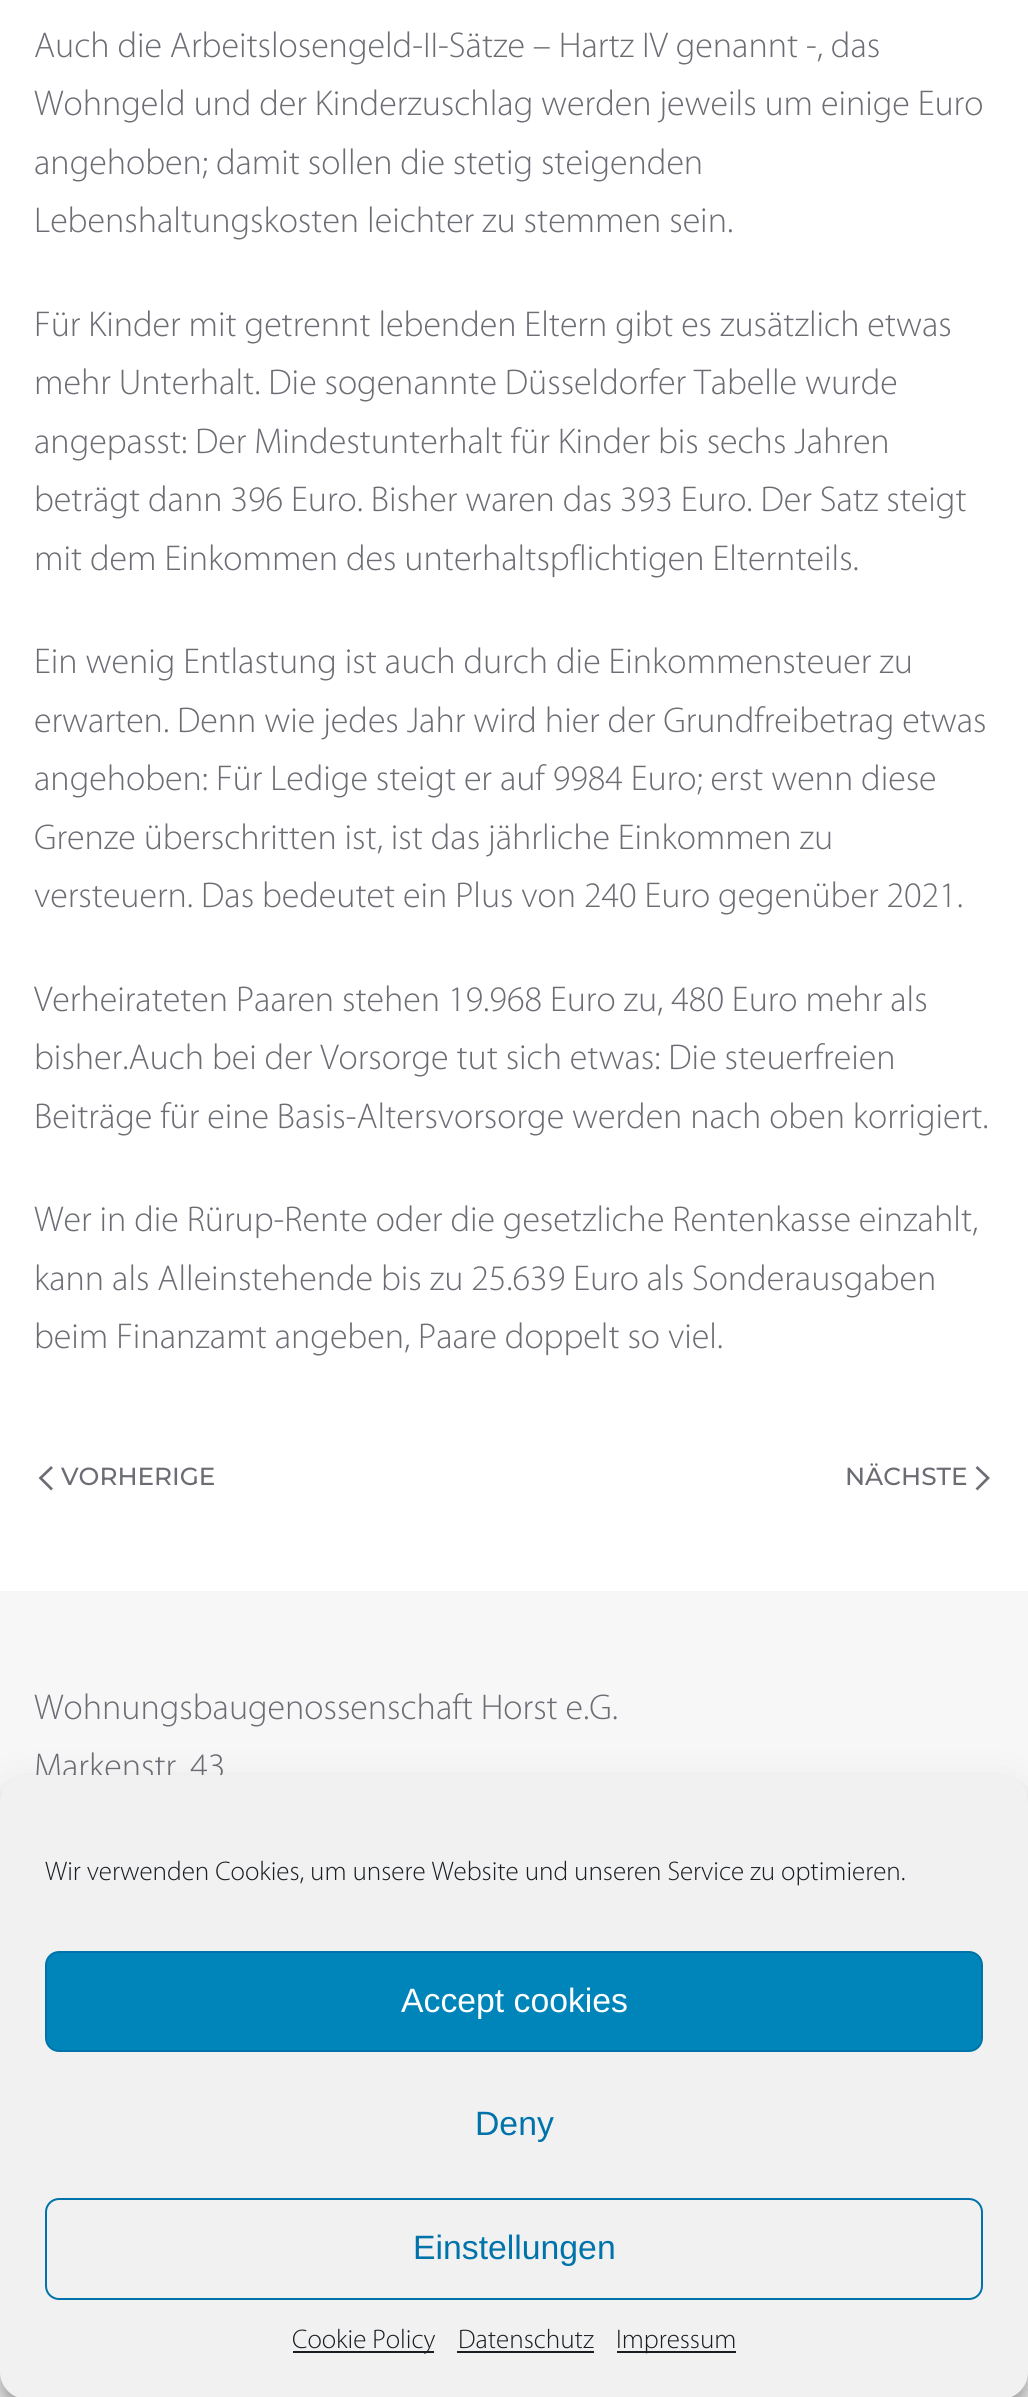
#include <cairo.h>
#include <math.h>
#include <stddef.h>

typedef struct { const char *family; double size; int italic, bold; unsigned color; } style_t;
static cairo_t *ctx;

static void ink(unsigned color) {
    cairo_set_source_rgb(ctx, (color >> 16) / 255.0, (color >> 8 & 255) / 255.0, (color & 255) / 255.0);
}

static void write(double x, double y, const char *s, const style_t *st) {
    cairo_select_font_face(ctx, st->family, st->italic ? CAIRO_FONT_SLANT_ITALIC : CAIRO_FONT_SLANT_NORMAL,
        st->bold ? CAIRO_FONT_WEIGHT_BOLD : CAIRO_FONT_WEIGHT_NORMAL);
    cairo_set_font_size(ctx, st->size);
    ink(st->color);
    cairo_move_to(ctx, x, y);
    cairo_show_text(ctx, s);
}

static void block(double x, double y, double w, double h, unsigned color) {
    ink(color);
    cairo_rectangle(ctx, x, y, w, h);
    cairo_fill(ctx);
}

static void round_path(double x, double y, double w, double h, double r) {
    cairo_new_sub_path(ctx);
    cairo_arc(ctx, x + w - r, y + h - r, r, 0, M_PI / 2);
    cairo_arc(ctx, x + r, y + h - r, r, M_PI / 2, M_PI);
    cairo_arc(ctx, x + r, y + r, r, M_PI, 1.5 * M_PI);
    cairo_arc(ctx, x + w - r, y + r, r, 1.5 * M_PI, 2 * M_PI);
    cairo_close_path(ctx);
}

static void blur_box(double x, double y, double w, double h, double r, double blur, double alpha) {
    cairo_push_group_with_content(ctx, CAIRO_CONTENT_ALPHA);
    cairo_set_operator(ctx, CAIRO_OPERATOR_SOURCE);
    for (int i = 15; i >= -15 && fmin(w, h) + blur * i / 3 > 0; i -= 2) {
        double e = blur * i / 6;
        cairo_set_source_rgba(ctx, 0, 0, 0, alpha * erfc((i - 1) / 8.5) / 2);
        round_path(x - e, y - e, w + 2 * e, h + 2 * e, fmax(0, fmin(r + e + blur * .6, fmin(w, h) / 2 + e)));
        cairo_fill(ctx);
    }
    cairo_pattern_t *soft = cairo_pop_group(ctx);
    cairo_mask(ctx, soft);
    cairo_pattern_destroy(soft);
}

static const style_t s1 = {"Myriad Light", 36, 0, 0, 0x6c6d74};
static const style_t s2 = {"Montserrat Thin", 24.75, 0, 0, 0x6c6d74};
static const style_t s3 = {"Myriad Light", 27, 0, 0, 0x191e23};
static const style_t s4 = {"Liberation Sans", 33.75, 0, 0, 0xffffff};
static const style_t s5 = {"Liberation Sans", 33.75, 0, 0, 0x0073aa};

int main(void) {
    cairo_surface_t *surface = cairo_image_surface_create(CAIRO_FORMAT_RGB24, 1028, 2397);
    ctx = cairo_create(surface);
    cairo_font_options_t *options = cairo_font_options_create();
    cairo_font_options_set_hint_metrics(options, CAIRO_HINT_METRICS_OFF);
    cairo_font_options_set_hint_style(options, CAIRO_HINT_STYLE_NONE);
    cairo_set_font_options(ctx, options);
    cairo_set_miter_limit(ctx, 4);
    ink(0xffffff);
    cairo_paint(ctx);
    write(34, 57, "Auch die Arbeitslosengeld-II-Sätze – Hartz IV genannt -, das", &s1);
    write(34, 115, "Wohngeld und der Kinderzuschlag werden jeweils um einige Euro", &s1);
    write(34, 174, "angehoben; damit sollen die stetig steigenden", &s1);
    write(34, 232, "Lebenshaltungskosten leichter zu stemmen sein.", &s1);
    write(34, 336, "Für Kinder mit getrennt lebenden Eltern gibt es zusätzlich etwas", &s1);
    write(34, 394, "mehr Unterhalt. Die sogenannte Düsseldorfer Tabelle wurde", &s1);
    write(34, 453, "angepasst: Der Mindestunterhalt für Kinder bis sechs Jahren", &s1);
    write(34, 511, "beträgt dann 396 Euro. Bisher waren das 393 Euro. Der Satz steigt", &s1);
    write(34, 570, "mit dem Einkommen des unterhaltspflichtigen Elternteils.", &s1);
    write(34, 673, "Ein wenig Entlastung ist auch durch die Einkommensteuer zu", &s1);
    write(34, 732, "erwarten. Denn wie jedes Jahr wird hier der Grundfreibetrag etwas", &s1);
    write(34, 790, "angehoben: Für Ledige steigt er auf 9984 Euro; erst wenn diese", &s1);
    write(34, 849, "Grenze überschritten ist, ist das jährliche Einkommen zu", &s1);
    write(34, 907, "versteuern. Das bedeutet ein Plus von 240 Euro gegenüber 2021.", &s1);
    write(34, 1011, "Verheirateten Paaren stehen 19.968 Euro zu, 480 Euro mehr als", &s1);
    write(34, 1069, "bisher.Auch bei der Vorsorge tut sich etwas: Die steuerfreien", &s1);
    write(34, 1128, "Beiträge für eine Basis-Altersvorsorge werden nach oben korrigiert.", &s1);
    write(34, 1231, "Wer in die Rürup-Rente oder die gesetzliche Rentenkasse einzahlt,", &s1);
    write(34, 1290, "kann als Alleinstehende bis zu 25.639 Euro als Sonderausgaben", &s1);
    write(34, 1348, "beim Finanzamt angeben, Paare doppelt so viel.", &s1);
    cairo_new_path(ctx);
    cairo_move_to(ctx, 52, 1467);
    cairo_line_to(ctx, 40.5, 1478);
    cairo_line_to(ctx, 52, 1489.5);
    cairo_set_line_width(ctx, 2.7);
    cairo_stroke(ctx);
    write(61, 1485, "VORHERIGE", &s2);
    write(845, 1485, "NÄCHSTE", &s2);
    cairo_new_path(ctx);
    cairo_move_to(ctx, 976.5, 1467);
    cairo_line_to(ctx, 988, 1478);
    cairo_line_to(ctx, 976.5, 1489.5);
    cairo_stroke(ctx);
    block(0, 1591, 1028, 806, 0xf7f7f7);
    write(34, 1719, "Wohnungsbaugenossenschaft Horst e.G.", &s1);
    write(34, 1778, "Markenstr. 43", &s1);
    ink(0x000000);
    blur_box(0, 1789, 1028, 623, 27, 7, 0.23);
    blur_box(0, 1798, 1028, 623, 27, 22.5, 0.19);
    ink(0xf1f1f1);
    round_path(0, 1775, 1028, 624, 27);
    cairo_fill(ctx);
    write(45, 1880, "Wir verwenden Cookies, um unsere Website und unseren Service zu optimieren.", &s3);
    ink(0x0085ba);
    round_path(46, 1952, 936, 99, 13);
    cairo_fill_preserve(ctx);
    ink(0x0073aa);
    cairo_set_line_width(ctx, 2);
    cairo_stroke(ctx);
    write(401, 2012, "Accept cookies", &s4);
    write(475, 2135, "Deny", &s5);
    round_path(46, 2199, 936, 100, 13);
    cairo_stroke(ctx);
    write(413, 2259, "Einstellungen", &s5);
    block(293, 2351, 141, 2, 0x191e23);
    write(292, 2348, "Cookie Policy", &s3);
    write(458, 2348, "Datenschutz", &s3);
    block(457, 2351, 137, 2, 0x191e23);
    block(617, 2351, 119, 2, 0x191e23);
    write(616, 2348, "Impressum", &s3);
    cairo_surface_write_to_png(surface, "screenshot.png");
    cairo_font_options_destroy(options);
    cairo_destroy(ctx);
    cairo_surface_destroy(surface);
    return 0;
}
